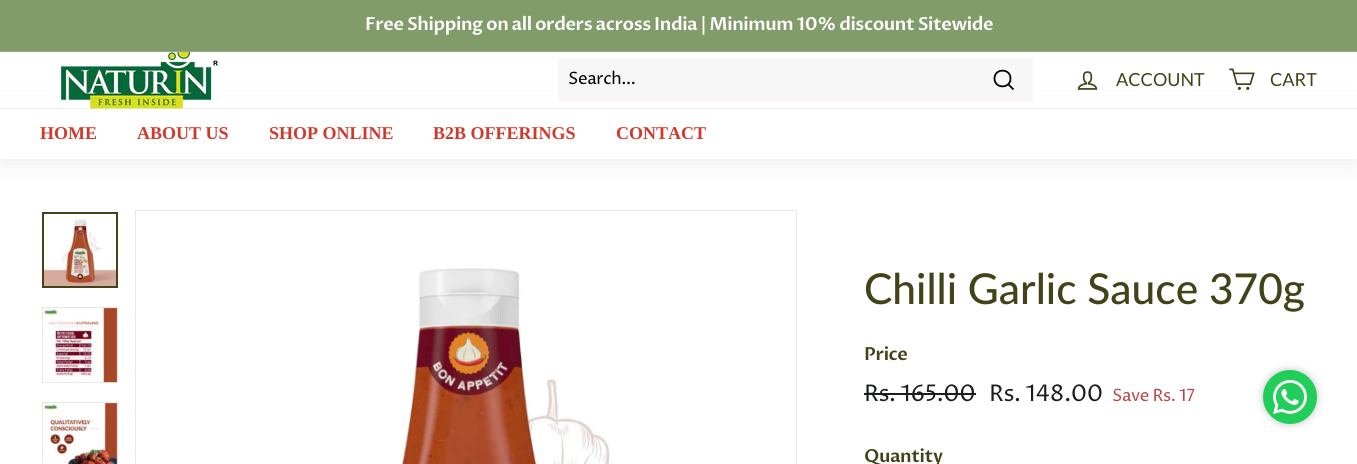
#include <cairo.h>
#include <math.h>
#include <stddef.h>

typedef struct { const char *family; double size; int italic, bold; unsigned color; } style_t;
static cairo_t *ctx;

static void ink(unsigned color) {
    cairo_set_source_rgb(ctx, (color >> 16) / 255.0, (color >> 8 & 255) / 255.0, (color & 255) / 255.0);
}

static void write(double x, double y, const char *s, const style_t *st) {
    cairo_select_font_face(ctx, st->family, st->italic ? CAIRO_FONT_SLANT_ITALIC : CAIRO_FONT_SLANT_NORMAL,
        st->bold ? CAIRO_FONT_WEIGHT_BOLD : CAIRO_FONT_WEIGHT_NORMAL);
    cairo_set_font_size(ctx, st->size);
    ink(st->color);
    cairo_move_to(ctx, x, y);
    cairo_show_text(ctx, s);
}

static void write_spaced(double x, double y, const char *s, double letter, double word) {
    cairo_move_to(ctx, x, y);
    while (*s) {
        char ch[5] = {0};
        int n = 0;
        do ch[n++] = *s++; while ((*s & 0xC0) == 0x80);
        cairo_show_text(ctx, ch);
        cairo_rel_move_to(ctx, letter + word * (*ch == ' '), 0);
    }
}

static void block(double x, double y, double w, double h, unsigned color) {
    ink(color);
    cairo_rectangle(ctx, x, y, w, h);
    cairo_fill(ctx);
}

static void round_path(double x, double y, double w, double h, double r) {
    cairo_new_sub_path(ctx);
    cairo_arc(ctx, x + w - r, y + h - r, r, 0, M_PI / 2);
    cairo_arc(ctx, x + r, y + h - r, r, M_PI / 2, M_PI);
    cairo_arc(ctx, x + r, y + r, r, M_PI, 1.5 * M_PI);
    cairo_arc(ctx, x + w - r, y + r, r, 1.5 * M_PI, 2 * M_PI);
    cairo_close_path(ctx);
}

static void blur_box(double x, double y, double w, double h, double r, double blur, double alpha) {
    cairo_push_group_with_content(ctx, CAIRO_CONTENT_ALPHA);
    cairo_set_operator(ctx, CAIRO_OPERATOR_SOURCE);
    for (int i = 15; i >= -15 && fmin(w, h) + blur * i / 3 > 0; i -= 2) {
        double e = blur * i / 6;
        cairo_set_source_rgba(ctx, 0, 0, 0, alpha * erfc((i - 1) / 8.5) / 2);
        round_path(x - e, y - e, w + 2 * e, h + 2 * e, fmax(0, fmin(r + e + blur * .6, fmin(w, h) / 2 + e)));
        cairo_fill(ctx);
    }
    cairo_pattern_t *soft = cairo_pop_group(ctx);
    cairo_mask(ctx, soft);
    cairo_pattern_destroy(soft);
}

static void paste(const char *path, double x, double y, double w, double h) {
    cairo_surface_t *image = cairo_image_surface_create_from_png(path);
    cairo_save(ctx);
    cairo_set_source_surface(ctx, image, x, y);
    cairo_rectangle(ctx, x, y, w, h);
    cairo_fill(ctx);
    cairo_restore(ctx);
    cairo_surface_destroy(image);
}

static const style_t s1 = {"Lato", 18, 0, 0, 0x424319};
static const style_t s2 = {"Liberation Serif", 18, 0, 1, 0xd1392b};
static const style_t s3 = {"Lato Medium", 42.5, 0, 0, 0x424319};

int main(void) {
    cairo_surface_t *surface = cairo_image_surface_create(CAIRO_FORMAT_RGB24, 1357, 464);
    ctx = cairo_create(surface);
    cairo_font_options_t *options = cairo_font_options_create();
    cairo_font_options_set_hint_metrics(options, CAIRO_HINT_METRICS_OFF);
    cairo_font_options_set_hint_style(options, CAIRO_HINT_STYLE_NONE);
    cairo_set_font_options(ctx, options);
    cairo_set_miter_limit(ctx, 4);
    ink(0xffffff);
    cairo_paint(ctx);
    block(0, 0, 1357, 51, 0x819b6a);
    cairo_select_font_face(ctx, "Proza Libre SemiBold", CAIRO_FONT_SLANT_NORMAL, CAIRO_FONT_WEIGHT_NORMAL);
    cairo_set_font_size(ctx, 18);
    ink(0xffffff);
    write_spaced(365, 30, "Free Shipping on all orders across India | Minimum 10% discount Sitewide", -0.42, 0);
    block(0, 51, 1357, 1, 0x94aa80);
    ink(0x000000);
    blur_box(0, 108, 1357, 51, 0, 12.5, 0.1);
    block(0, 92, 1357, 16, 0xffffff);
    block(0, 108, 1357, 1, 0xfaebea);
    paste("pic1.png", 60, 52, 160, 57);
    block(558, 59, 475, 42, 0xf7f7f7);
    cairo_select_font_face(ctx, "Proza Libre", CAIRO_FONT_SLANT_NORMAL, CAIRO_FONT_WEIGHT_NORMAL);
    cairo_set_font_size(ctx, 17);
    ink(0x000000);
    write_spaced(568, 84, "Search...", -0.42, 0);
    cairo_new_path(ctx);
    cairo_move_to(ctx, 1010.5, 78.5);
    cairo_curve_to(ctx, 1010.5, 89, 994.5, 89, 994.5, 78.5);
    cairo_curve_to(ctx, 994.5, 68, 1010.5, 68, 1010.5, 78.5);
    cairo_close_path(ctx);
    cairo_move_to(ctx, 1013.5, 89.5);
    cairo_line_to(ctx, 1008.5, 84.5);
    cairo_set_line_width(ctx, 1.8);
    cairo_stroke(ctx);
    paste("pic2.png", 1077, 71, 21, 19);
    write(1116, 86, "ACCOUNT", &s1);
    paste("pic3.png", 1229, 68, 26, 22);
    write(1270, 86, "CART", &s1);
    block(0, 109, 1357, 50, 0xffffff);
    write(40, 139, "HOME", &s2);
    write(137, 139, "ABOUT US", &s2);
    write(269, 139, "SHOP ONLINE", &s2);
    write(433, 139, "B2B OFFERINGS", &s2);
    write(616, 139, "CONTACT", &s2);
    paste("pic4.png", 44, 219, 72, 67);
    cairo_rectangle(ctx, 43, 213, 74, 74);
    ink(0x424319);
    cairo_set_line_width(ctx, 2);
    cairo_stroke(ctx);
    cairo_rectangle(ctx, 42.5, 307.5, 75, 75);
    ink(0xe8e8e1);
    cairo_set_line_width(ctx, 1);
    cairo_stroke(ctx);
    paste("pic5.png", 44, 308, 74, 75);
    cairo_rectangle(ctx, 42.5, 402.5, 75, 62);
    cairo_stroke(ctx);
    paste("pic6.png", 43, 403, 75, 61);
    cairo_rectangle(ctx, 135.5, 210.5, 661, 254);
    cairo_stroke(ctx);
    paste("pic7.png", 400, 268, 210, 196);
    write(864, 304, "Chilli Garlic Sauce 370g", &s3);
    cairo_select_font_face(ctx, "Proza Libre SemiBold", CAIRO_FONT_SLANT_NORMAL, CAIRO_FONT_WEIGHT_NORMAL);
    cairo_set_font_size(ctx, 18);
    write_spaced(864, 360, "Price", -0.42, 0);
    cairo_select_font_face(ctx, "Proza Libre", CAIRO_FONT_SLANT_NORMAL, CAIRO_FONT_WEIGHT_NORMAL);
    cairo_set_font_size(ctx, 23);
    ink(0x1c1d1d);
    write_spaced(864, 401, "Rs. 165.00", -0.42, 0);
    block(864, 393, 112, 2, 0x1c1d1d);
    write_spaced(989, 401, "Rs. 148.00", -0.42, 0);
    cairo_set_font_size(ctx, 17);
    ink(0xba4444);
    write_spaced(1112, 401, "Save Rs. 17", -0.42, 0);
    cairo_select_font_face(ctx, "Proza Libre SemiBold", CAIRO_FONT_SLANT_NORMAL, CAIRO_FONT_WEIGHT_NORMAL);
    cairo_set_font_size(ctx, 18);
    ink(0x424319);
    write_spaced(864, 462, "Quantity", -0.42, 0);
    ink(0xc2c2c2);
    blur_box(1263, 370, 54, 54, 27, 4, 1);
    ink(0x22ce5a);
    cairo_arc(ctx, 1290, 397, 27, 0, 2 * M_PI);
    cairo_fill(ctx);
    paste("pic8.png", 1273, 380, 34, 34);
    cairo_surface_write_to_png(surface, "screenshot.png");
    cairo_font_options_destroy(options);
    cairo_destroy(ctx);
    cairo_surface_destroy(surface);
    return 0;
}
